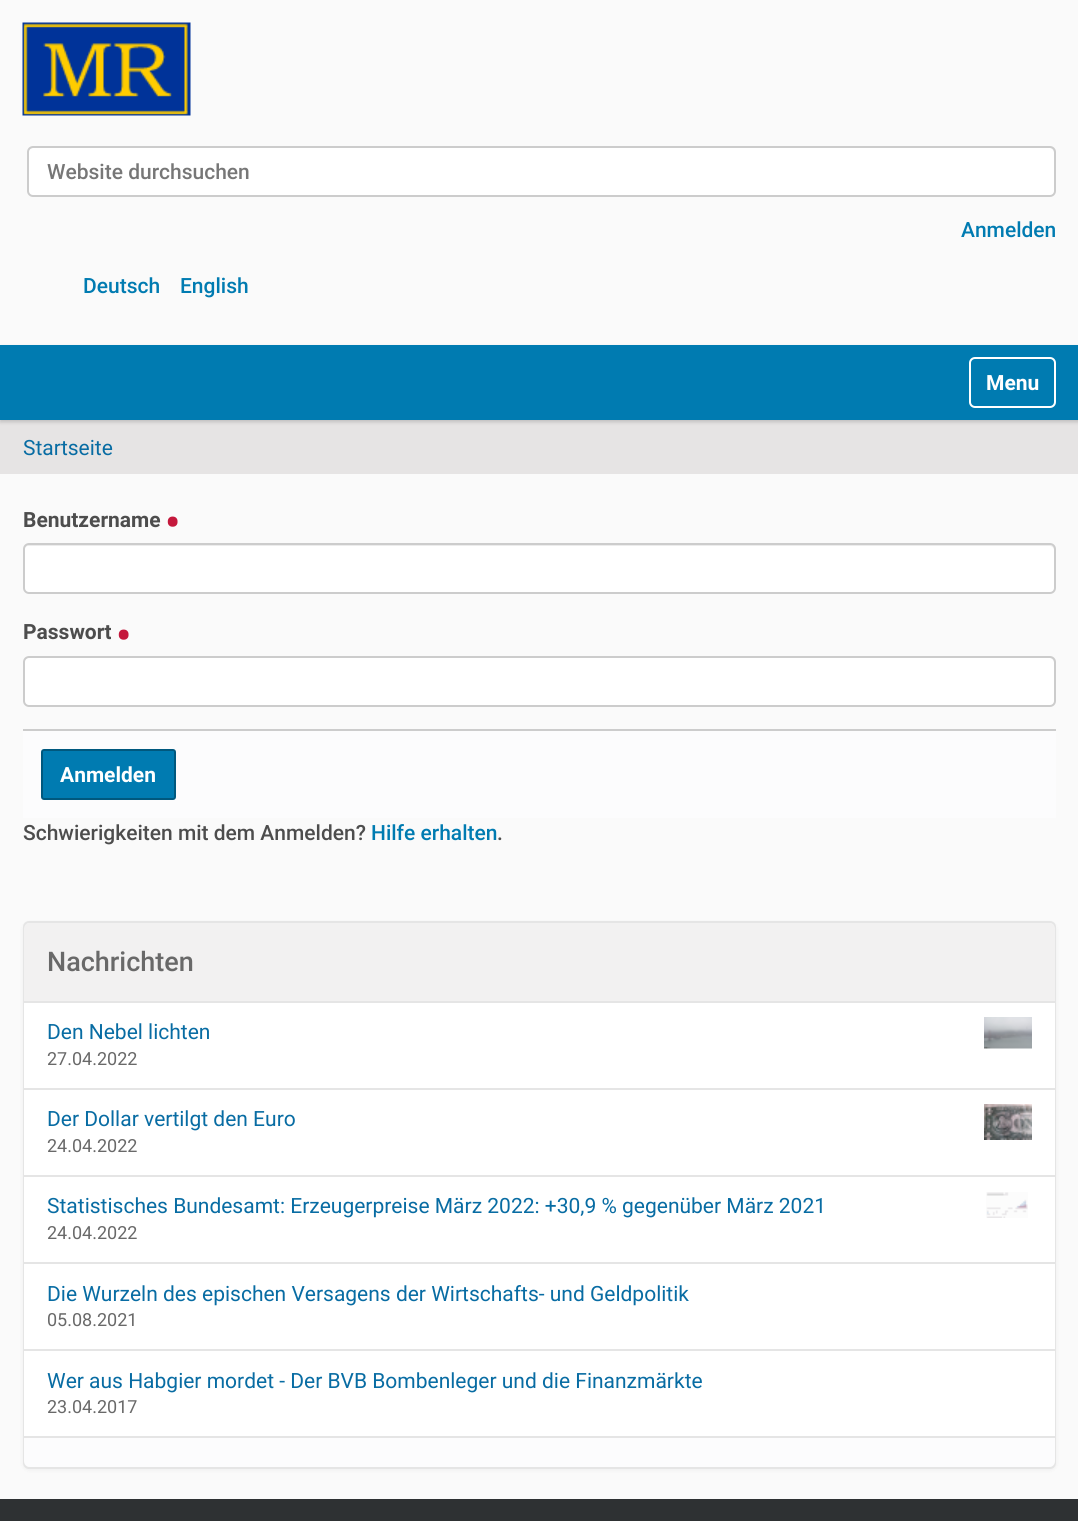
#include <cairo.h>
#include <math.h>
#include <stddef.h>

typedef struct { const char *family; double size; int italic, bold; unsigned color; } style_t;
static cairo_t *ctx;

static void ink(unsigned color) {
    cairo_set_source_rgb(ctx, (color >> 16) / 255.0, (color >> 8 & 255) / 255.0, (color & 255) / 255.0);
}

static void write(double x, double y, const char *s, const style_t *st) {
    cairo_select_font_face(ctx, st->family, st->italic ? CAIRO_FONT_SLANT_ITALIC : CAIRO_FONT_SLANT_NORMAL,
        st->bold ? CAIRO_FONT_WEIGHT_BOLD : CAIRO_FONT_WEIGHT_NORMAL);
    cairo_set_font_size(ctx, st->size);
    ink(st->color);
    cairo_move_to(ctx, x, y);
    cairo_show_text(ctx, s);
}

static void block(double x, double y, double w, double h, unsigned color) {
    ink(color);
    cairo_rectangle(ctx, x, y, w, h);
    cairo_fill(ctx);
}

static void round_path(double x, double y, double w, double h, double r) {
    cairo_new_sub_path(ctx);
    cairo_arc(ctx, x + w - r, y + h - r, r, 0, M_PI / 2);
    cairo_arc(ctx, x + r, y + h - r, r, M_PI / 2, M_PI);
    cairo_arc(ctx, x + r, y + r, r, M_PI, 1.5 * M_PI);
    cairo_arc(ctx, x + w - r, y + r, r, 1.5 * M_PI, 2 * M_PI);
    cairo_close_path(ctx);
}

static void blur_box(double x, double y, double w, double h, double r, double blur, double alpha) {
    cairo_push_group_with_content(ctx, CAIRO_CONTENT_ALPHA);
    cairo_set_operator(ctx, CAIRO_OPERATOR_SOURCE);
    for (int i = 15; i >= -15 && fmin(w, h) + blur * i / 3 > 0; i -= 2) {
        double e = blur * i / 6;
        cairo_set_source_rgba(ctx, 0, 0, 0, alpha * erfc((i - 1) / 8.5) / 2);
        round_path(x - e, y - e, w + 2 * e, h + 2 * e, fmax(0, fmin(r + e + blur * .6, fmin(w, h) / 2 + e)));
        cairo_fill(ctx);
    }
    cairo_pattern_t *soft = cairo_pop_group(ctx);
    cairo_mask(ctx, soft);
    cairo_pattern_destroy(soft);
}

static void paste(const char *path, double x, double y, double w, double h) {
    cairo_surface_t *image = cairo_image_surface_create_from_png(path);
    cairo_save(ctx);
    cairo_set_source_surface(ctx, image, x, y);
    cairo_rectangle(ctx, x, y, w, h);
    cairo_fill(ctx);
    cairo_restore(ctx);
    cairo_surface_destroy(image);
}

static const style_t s1 = {"Roboto Medium", 21, 0, 0, 0x777777};
static const style_t s2 = {"Roboto Medium", 21, 0, 0, 0x007bb1};
static const style_t s3 = {"Roboto", 21, 0, 1, 0xffffff};
static const style_t s4 = {"Roboto", 21, 0, 0, 0x086ca3};
static const style_t s5 = {"Roboto", 21, 0, 1, 0x4d4d4d};
static const style_t s6 = {"Roboto", 42, 0, 1, 0xc4183c};
static const style_t s7 = {"Roboto Medium", 21, 0, 0, 0x4d4d4d};
static const style_t s8 = {"Roboto Medium", 27, 0, 0, 0x696969};
static const style_t s9 = {"Roboto", 18, 0, 0, 0x696969};

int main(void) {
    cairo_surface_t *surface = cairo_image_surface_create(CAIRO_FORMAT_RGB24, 1078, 1521);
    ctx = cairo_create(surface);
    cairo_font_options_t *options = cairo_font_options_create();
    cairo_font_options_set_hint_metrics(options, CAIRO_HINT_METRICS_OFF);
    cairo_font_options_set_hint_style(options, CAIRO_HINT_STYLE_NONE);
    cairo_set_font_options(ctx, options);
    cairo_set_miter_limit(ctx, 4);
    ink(0xfafafa);
    cairo_paint(ctx);
    paste("pic1.png", 22, 22, 169, 94);
    ink(0xffffff);
    round_path(27, 146, 1029, 51, 6);
    cairo_fill(ctx);
    ink(0xececec);
    cairo_new_path(ctx);
    cairo_move_to(ctx, 33, 148);
    cairo_line_to(ctx, 1050, 148);
    cairo_curve_to(ctx, 1052, 148, 1054, 151, 1054, 153);
    cairo_line_to(ctx, 1054, 193);
    cairo_curve_to(ctx, 1055, 192, 1055, 191, 1055, 190);
    cairo_line_to(ctx, 1055, 152);
    cairo_curve_to(ctx, 1055, 149, 1053, 147, 1050, 147);
    cairo_line_to(ctx, 34, 147);
    cairo_curve_to(ctx, 32, 147, 30, 148, 29, 150);
    cairo_curve_to(ctx, 30, 149, 32, 148, 33, 148);
    cairo_close_path(ctx);
    cairo_fill(ctx);
    round_path(28, 147, 1027, 49, 5);
    ink(0xcccccc);
    cairo_stroke(ctx);
    write(47, 179, "Website durchsuchen", &s1);
    write(961, 237, "Anmelden", &s2);
    write(83, 293, "Deutsch", &s2);
    write(180, 293, "English", &s2);
    block(0, 420, 1078, 54, 0xe6e4e4);
    ink(0x000000);
    blur_box(0, 347, 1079, 75, 0, 2, 0.17);
    block(0, 345, 1078, 75, 0x007bb1);
    round_path(970, 358, 85, 49, 5);
    ink(0xffffff);
    cairo_stroke(ctx);
    write(986, 390, "Menu", &s3);
    write(23, 455, "Startseite", &s4);
    write(23, 527, "Benutzername", &s5);
    write(165, 537, "•", &s6);
    ink(0xffffff);
    round_path(23, 543, 1033, 51, 6);
    cairo_fill(ctx);
    ink(0xececec);
    cairo_new_path(ctx);
    cairo_move_to(ctx, 28, 546);
    cairo_line_to(ctx, 1050, 546);
    cairo_curve_to(ctx, 1052, 546, 1054, 548, 1054, 550);
    cairo_line_to(ctx, 1054, 591);
    cairo_curve_to(ctx, 1055, 590, 1055, 589, 1055, 588);
    cairo_line_to(ctx, 1055, 550);
    cairo_curve_to(ctx, 1055, 547, 1053, 545, 1050, 545);
    cairo_line_to(ctx, 29, 545);
    cairo_curve_to(ctx, 26, 545, 24, 547, 24, 550);
    cairo_curve_to(ctx, 24, 548, 26, 546, 28, 546);
    cairo_close_path(ctx);
    cairo_fill(ctx);
    round_path(24, 544, 1031, 49, 5);
    ink(0xcccccc);
    cairo_stroke(ctx);
    write(23, 639, "Passwort", &s5);
    write(116, 650, "•", &s6);
    ink(0xffffff);
    round_path(23, 656, 1033, 51, 6);
    cairo_fill(ctx);
    ink(0xececec);
    cairo_new_path(ctx);
    cairo_move_to(ctx, 28, 658);
    cairo_line_to(ctx, 1050, 658);
    cairo_curve_to(ctx, 1052, 658, 1054, 661, 1054, 663);
    cairo_line_to(ctx, 1054, 703);
    cairo_curve_to(ctx, 1055, 702, 1055, 701, 1055, 700);
    cairo_line_to(ctx, 1055, 662);
    cairo_curve_to(ctx, 1055, 659, 1053, 657, 1050, 657);
    cairo_line_to(ctx, 29, 657);
    cairo_curve_to(ctx, 26, 657, 24, 659, 24, 662);
    cairo_line_to(ctx, 24, 663);
    cairo_curve_to(ctx, 24, 661, 26, 658, 28, 658);
    cairo_close_path(ctx);
    cairo_fill(ctx);
    round_path(24, 657, 1031, 49, 5);
    ink(0xcccccc);
    cairo_stroke(ctx);
    block(23, 731, 1033, 87, 0xfcfcfd);
    block(23, 729, 1033, 2, 0xcccccc);
    ink(0x007bb1);
    round_path(42, 750, 133, 49, 2);
    cairo_fill_preserve(ctx);
    ink(0x00587e);
    cairo_stroke(ctx);
    write(60, 782, "Anmelden", &s3);
    write(23, 840, "Schwierigkeiten mit dem Anmelden?", &s7);
    write(371, 840, "Hilfe erhalten", &s2);
    write(497, 840, ".", &s7);
    ink(0x000000);
    blur_box(23, 923, 1033, 547, 6, 2, 0.05);
    round_path(24, 922, 1031, 546, 5);
    ink(0xe5e5e5);
    cairo_stroke(ctx);
    ink(0xf2f1f1);
    cairo_new_path(ctx);
    cairo_move_to(ctx, 30, 923);
    cairo_line_to(ctx, 1049, 923);
    cairo_curve_to(ctx, 1052.5, 923, 1055, 925.5, 1055, 929);
    cairo_line_to(ctx, 1055, 1001);
    cairo_line_to(ctx, 24, 1001);
    cairo_line_to(ctx, 24, 929);
    cairo_curve_to(ctx, 24, 925.5, 26.5, 923, 30, 923);
    cairo_close_path(ctx);
    cairo_fill(ctx);
    write(47, 971, "Nachrichten", &s8);
    block(24, 1003, 1031, 433, 0xffffff);
    block(24, 1001, 1031, 2, 0xe5e5e5);
    write(47, 1039, "Den Nebel lichten", &s4);
    paste("pic2.png", 984, 1017, 48, 32);
    write(47, 1065, "27.04.2022", &s9);
    block(24, 1088, 1031, 2, 0xe5e5e5);
    write(47, 1126, "Der Dollar vertilgt den Euro", &s4);
    paste("pic3.png", 984, 1104, 48, 36);
    write(47, 1152, "24.04.2022", &s9);
    block(24, 1175, 1031, 2, 0xe5e5e5);
    write(47, 1213, "Statistisches Bundesamt: Erzeugerpreise März 2022: +30,9 % gegenüber März 2021", &s4);
    paste("pic4.png", 986, 1192, 42, 26);
    write(47, 1239, "24.04.2022", &s9);
    block(24, 1262, 1031, 2, 0xe5e5e5);
    write(47, 1301, "Die Wurzeln des epischen Versagens der Wirtschafts- und Geldpolitik", &s4);
    write(47, 1326, "05.08.2021", &s9);
    block(24, 1349, 1031, 2, 0xe5e5e5);
    write(47, 1388, "Wer aus Habgier mordet - Der BVB Bombenleger und die Finanzmärkte", &s4);
    write(47, 1413, "23.04.2017", &s9);
    ink(0xfcfcfd);
    cairo_new_path(ctx);
    cairo_move_to(ctx, 24, 1436);
    cairo_line_to(ctx, 1055, 1436);
    cairo_line_to(ctx, 1055, 1461);
    cairo_curve_to(ctx, 1055, 1464.5, 1052.5, 1467, 1049, 1467);
    cairo_line_to(ctx, 30, 1467);
    cairo_curve_to(ctx, 26.5, 1467, 24, 1464.5, 24, 1461);
    cairo_close_path(ctx);
    cairo_fill(ctx);
    block(24, 1436, 1031, 2, 0xe5e5e5);
    block(0, 1499, 1078, 22, 0x2e3133);
    cairo_surface_write_to_png(surface, "screenshot.png");
    cairo_font_options_destroy(options);
    cairo_destroy(ctx);
    cairo_surface_destroy(surface);
    return 0;
}
